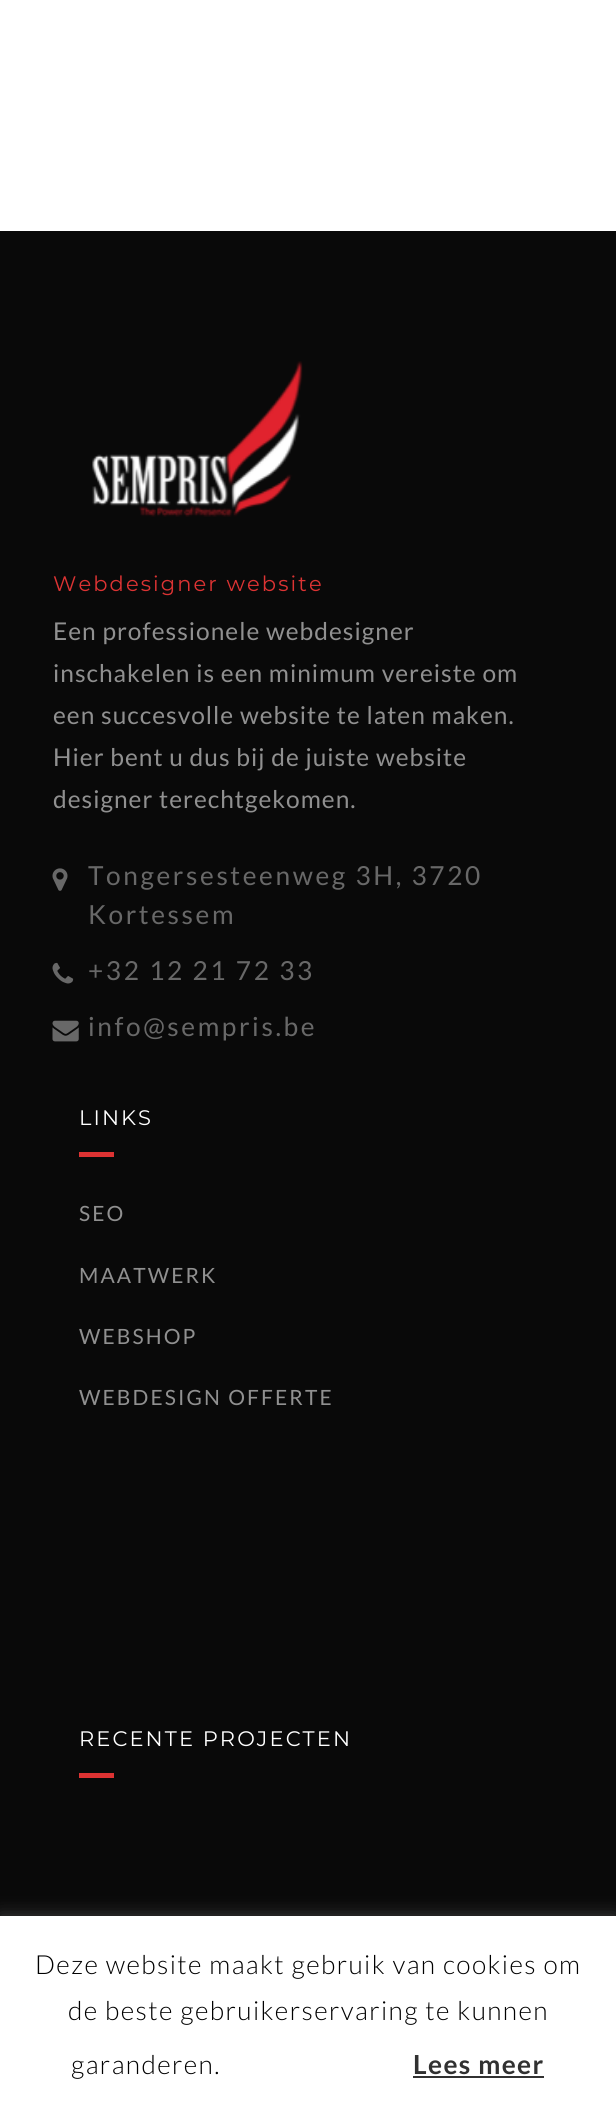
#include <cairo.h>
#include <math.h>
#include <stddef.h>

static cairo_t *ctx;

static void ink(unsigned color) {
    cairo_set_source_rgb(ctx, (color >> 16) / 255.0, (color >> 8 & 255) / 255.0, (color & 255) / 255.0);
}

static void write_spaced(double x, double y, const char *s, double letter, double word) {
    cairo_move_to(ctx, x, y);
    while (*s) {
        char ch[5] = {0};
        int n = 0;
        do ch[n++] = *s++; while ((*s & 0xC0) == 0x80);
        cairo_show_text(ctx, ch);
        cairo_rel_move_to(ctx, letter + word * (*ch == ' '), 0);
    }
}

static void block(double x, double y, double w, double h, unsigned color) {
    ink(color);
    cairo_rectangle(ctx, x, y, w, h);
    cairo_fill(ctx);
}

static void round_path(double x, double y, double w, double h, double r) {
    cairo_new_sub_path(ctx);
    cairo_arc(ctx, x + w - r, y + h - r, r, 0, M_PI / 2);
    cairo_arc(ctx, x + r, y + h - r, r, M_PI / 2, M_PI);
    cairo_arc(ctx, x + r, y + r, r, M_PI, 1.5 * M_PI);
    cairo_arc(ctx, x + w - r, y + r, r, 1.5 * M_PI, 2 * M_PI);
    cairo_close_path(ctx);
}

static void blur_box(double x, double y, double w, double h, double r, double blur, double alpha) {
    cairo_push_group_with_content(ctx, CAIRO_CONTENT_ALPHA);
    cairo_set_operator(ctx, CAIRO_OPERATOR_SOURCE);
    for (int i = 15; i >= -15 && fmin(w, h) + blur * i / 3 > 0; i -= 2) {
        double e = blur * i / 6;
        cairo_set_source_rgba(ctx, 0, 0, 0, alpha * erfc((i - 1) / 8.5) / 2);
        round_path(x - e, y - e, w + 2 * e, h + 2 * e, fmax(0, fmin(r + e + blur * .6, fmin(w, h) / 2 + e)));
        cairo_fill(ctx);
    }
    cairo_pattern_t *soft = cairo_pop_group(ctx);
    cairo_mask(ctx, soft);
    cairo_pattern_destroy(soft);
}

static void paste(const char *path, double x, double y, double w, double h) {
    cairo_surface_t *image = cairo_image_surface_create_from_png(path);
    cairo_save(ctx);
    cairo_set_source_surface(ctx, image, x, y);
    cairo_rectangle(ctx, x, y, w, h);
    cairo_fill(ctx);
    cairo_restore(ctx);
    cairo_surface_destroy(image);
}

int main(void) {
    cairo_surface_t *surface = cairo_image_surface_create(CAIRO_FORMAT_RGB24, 616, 2113);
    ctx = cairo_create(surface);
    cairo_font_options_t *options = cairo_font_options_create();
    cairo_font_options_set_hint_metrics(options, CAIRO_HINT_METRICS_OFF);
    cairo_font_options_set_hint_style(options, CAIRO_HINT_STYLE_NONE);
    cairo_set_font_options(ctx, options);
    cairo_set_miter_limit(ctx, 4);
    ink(0xffffff);
    cairo_paint(ctx);
    block(0, 231, 616, 1685, 0x090909);
    paste("pic1.png", 92, 361, 211, 156);
    cairo_select_font_face(ctx, "Montserrat", CAIRO_FONT_SLANT_NORMAL, CAIRO_FONT_WEIGHT_NORMAL);
    cairo_set_font_size(ctx, 21);
    ink(0xdd3333);
    write_spaced(53, 591, "Webdesigner website", 2.1, 0);
    cairo_select_font_face(ctx, "Lato", CAIRO_FONT_SLANT_NORMAL, CAIRO_FONT_WEIGHT_NORMAL);
    cairo_set_font_size(ctx, 24.5);
    ink(0x909090);
    write_spaced(53, 640, "Een professionele webdesigner", 1, 0);
    write_spaced(53, 682, "inschakelen is een minimum vereiste om", 1, 0);
    write_spaced(53, 724, "een succesvolle website te laten maken.", 1, 0);
    write_spaced(53, 766, "Hier bent u dus bij de juiste website", 1, 0);
    write_spaced(53, 808, "designer terechtgekomen.", 1, 0);
    paste("pic2.png", 52, 868, 16, 23);
    cairo_set_font_size(ctx, 26.25);
    ink(0x686868);
    write_spaced(88, 885, "Tongersesteenweg 3H, 3720", 2.6, 0);
    write_spaced(88, 924, "Kortessem", 2.6, 0);
    paste("pic3.png", 52, 962, 22, 22);
    write_spaced(88, 980, "+32 12 21 72 33", 2.6, 0);
    paste("pic4.png", 52, 1020, 27, 22);
    write_spaced(88, 1036, "info@sempris.be", 2.6, 0);
    cairo_select_font_face(ctx, "Montserrat", CAIRO_FONT_SLANT_NORMAL, CAIRO_FONT_WEIGHT_NORMAL);
    cairo_set_font_size(ctx, 21);
    ink(0xffffff);
    write_spaced(79, 1125, "LINKS", 2.1, 0);
    block(79, 1152, 35, 5, 0xdd3333);
    cairo_select_font_face(ctx, "Lato", CAIRO_FONT_SLANT_NORMAL, CAIRO_FONT_WEIGHT_NORMAL);
    ink(0x909090);
    write_spaced(79, 1221, "SEO", 2.1, 0);
    write_spaced(79, 1283, "MAATWERK", 2.1, 0);
    write_spaced(79, 1344, "WEBSHOP", 2.1, 0);
    write_spaced(79, 1405, "WEBDESIGN OFFERTE", 2.1, 0);
    cairo_select_font_face(ctx, "Montserrat", CAIRO_FONT_SLANT_NORMAL, CAIRO_FONT_WEIGHT_NORMAL);
    ink(0xffffff);
    write_spaced(79, 1746, "RECENTE PROJECTEN", 2.1, 0);
    block(79, 1773, 35, 5, 0xdd3333);
    ink(0xacabab);
    blur_box(0, 1915, 616, 197, 0, 9, 0.3);
    block(0, 1916, 616, 197, 0xffffff);
    cairo_select_font_face(ctx, "Lato Light", CAIRO_FONT_SLANT_NORMAL, CAIRO_FONT_WEIGHT_NORMAL);
    cairo_set_font_size(ctx, 26.25);
    ink(0x000000);
    write_spaced(35, 1974, "Deze website maakt gebruik van cookies om", 1.4, 0);
    write_spaced(68, 2020, "de beste gebruikerservaring te kunnen", 1.4, 0);
    write_spaced(71, 2074, "garanderen.", 1.4, 0);
    cairo_select_font_face(ctx, "Lato", CAIRO_FONT_SLANT_NORMAL, CAIRO_FONT_WEIGHT_BOLD);
    ink(0x313131);
    write_spaced(413, 2074, "Lees meer", 1.4, 0);
    block(413, 2076, 131, 2, 0x313131);
    cairo_surface_write_to_png(surface, "screenshot.png");
    cairo_font_options_destroy(options);
    cairo_destroy(ctx);
    cairo_surface_destroy(surface);
    return 0;
}
